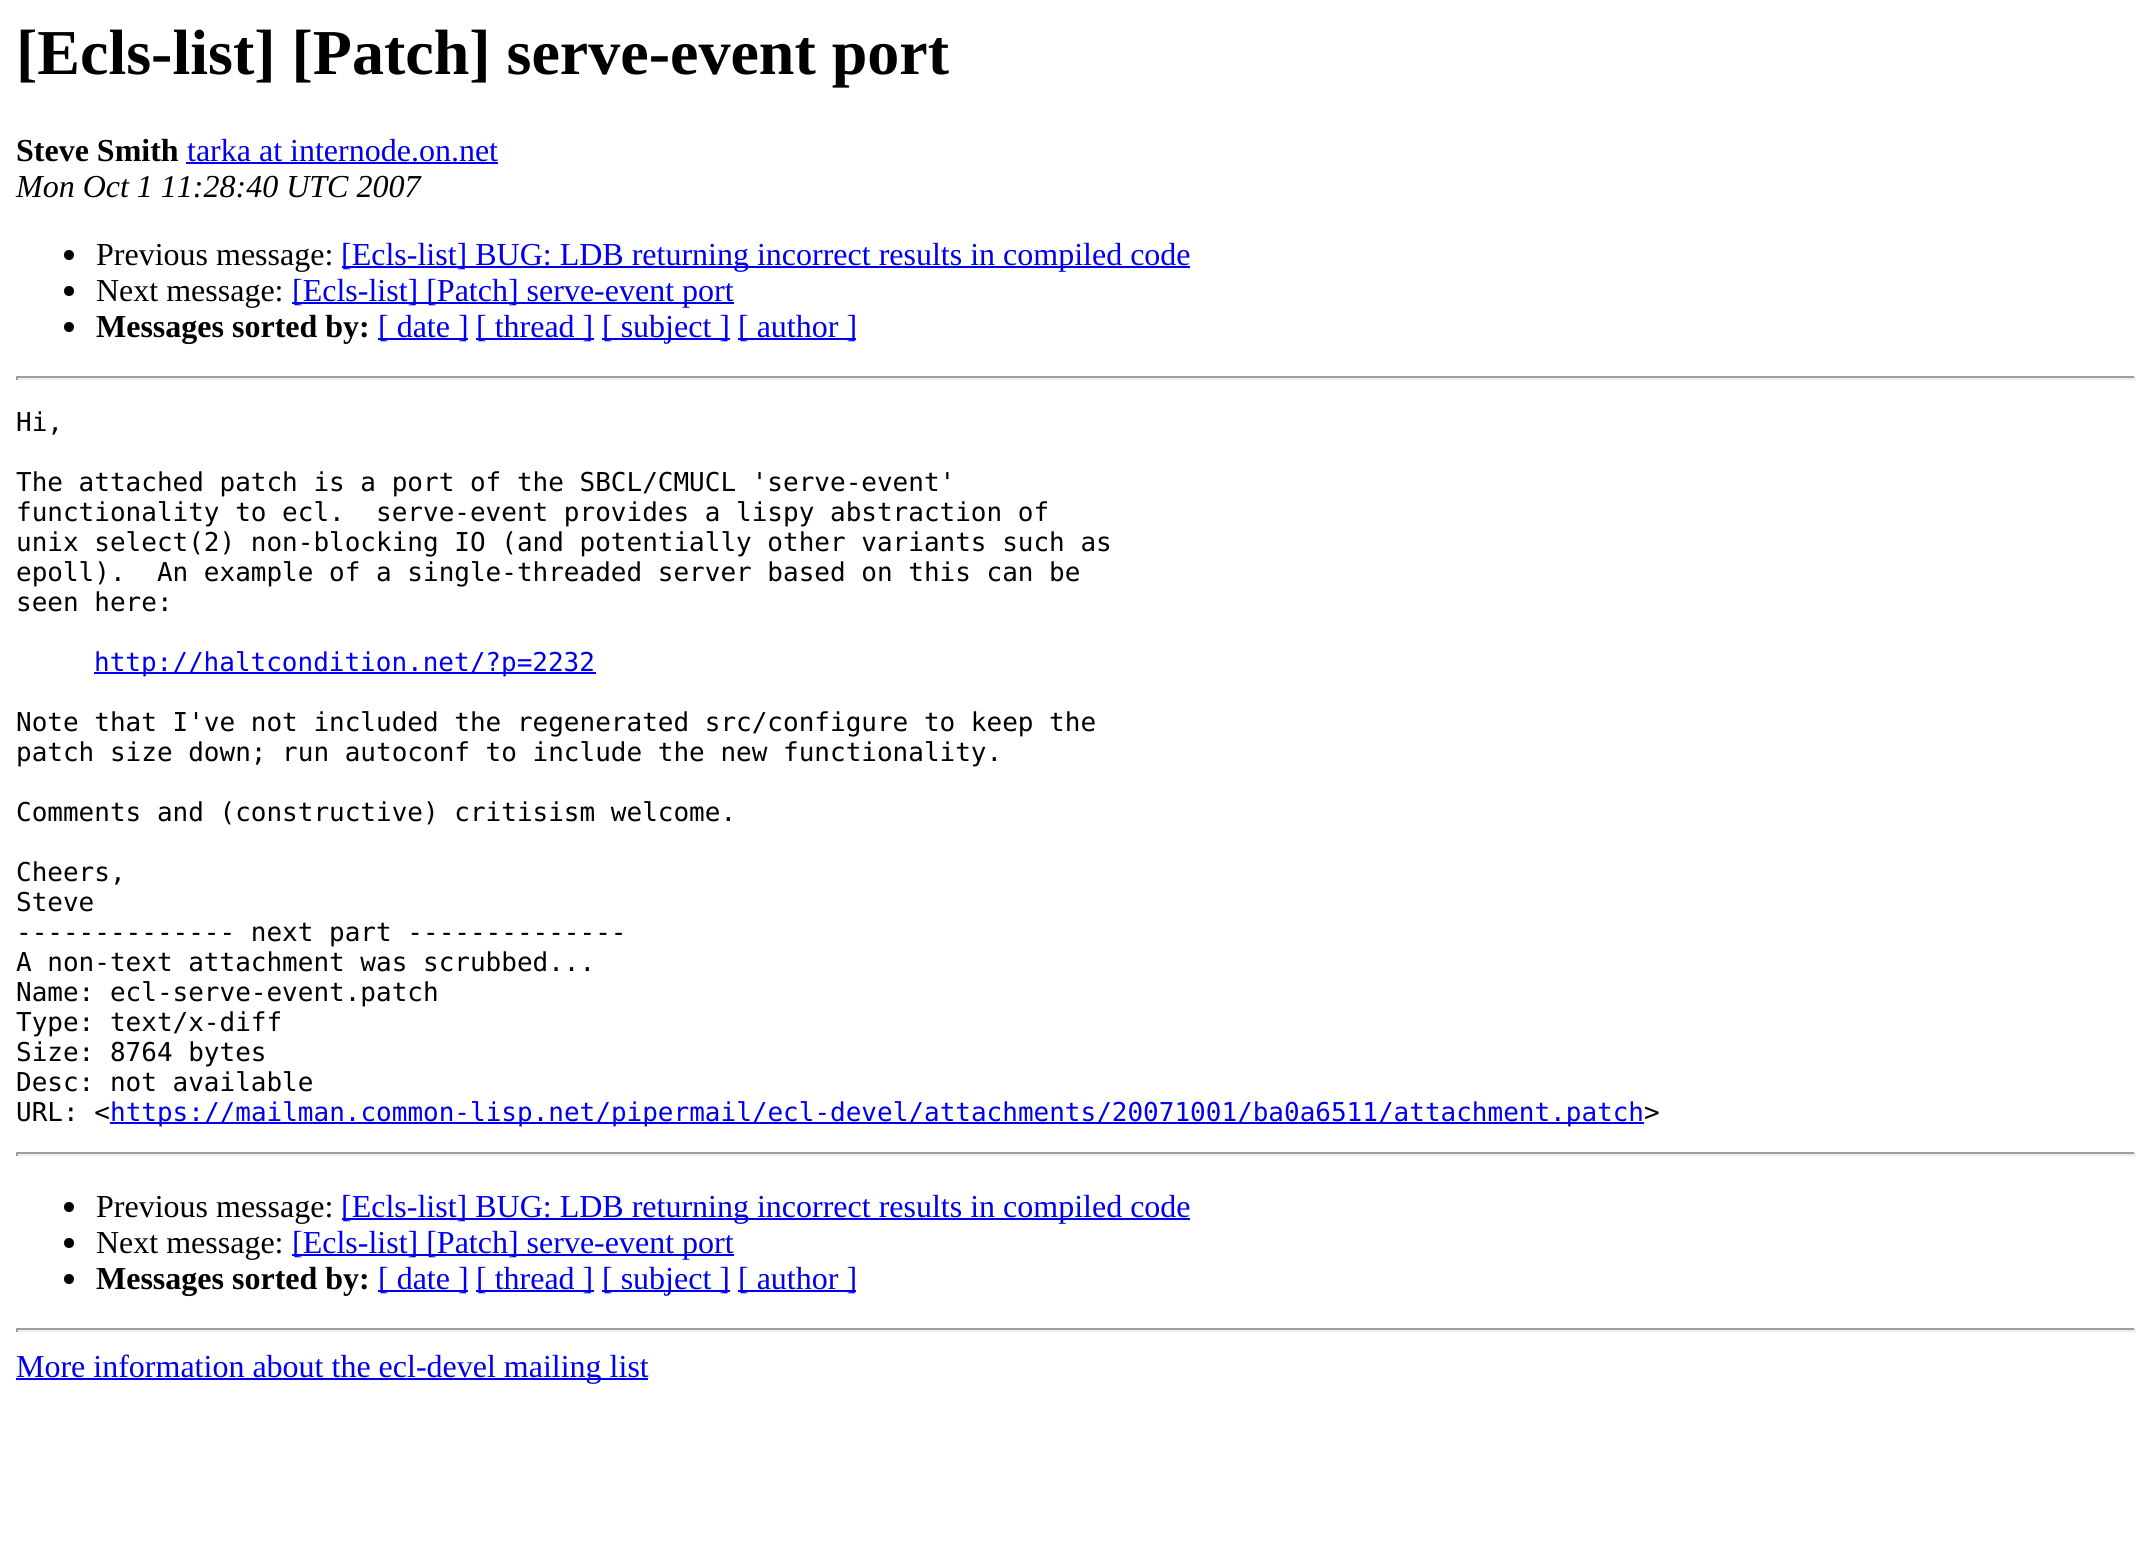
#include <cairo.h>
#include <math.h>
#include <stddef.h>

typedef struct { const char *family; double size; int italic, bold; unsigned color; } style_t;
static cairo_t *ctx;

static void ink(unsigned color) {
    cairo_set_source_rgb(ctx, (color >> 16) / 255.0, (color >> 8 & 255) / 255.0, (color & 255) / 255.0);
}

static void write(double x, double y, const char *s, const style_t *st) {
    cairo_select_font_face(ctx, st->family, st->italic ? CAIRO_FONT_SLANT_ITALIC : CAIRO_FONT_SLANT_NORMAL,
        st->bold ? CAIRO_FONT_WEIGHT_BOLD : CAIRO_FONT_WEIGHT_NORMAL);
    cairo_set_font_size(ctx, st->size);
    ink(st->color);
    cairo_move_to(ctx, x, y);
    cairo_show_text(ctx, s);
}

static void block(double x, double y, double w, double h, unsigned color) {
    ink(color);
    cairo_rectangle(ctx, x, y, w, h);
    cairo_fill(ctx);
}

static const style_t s1 = {"Liberation Serif", 64, 0, 1, 0x000000};
static const style_t s2 = {"Liberation Serif", 32, 0, 1, 0x000000};
static const style_t s3 = {"Liberation Serif", 32, 0, 0, 0x0000ee};
static const style_t s4 = {"Liberation Serif", 32, 1, 0, 0x000000};
static const style_t s5 = {"Liberation Serif", 32, 0, 0, 0x000000};
static const style_t s6 = {"DejaVu Sans Mono", 26, 0, 0, 0x000000};
static const style_t s7 = {"DejaVu Sans Mono", 26, 0, 0, 0x0000ee};

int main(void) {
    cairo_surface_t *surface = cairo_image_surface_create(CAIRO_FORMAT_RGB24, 2152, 1558);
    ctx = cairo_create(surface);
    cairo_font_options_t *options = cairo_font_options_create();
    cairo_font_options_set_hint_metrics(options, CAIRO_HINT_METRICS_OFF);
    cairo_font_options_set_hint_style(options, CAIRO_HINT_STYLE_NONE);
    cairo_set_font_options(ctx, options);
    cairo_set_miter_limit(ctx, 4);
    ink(0xffffff);
    cairo_paint(ctx);
    write(16, 74, "[Ecls-list] [Patch] serve-event port", &s1);
    write(16, 161, "Steve Smith", &s2);
    write(187, 161, "tarka at internode.on.net", &s3);
    block(186, 162, 312, 2, 0x0000ee);
    write(16, 197, "Mon Oct 1 11:28:40 UTC 2007", &s4);
    cairo_new_path(ctx);
    cairo_arc(ctx, 69, 255, 5, 0, 2 * M_PI);
    cairo_fill(ctx);
    write(96, 265, "Previous message:", &s5);
    block(342, 266, 848, 2, 0x0000ee);
    write(341, 265, "[Ecls-list] BUG: LDB returning incorrect results in compiled code", &s3);
    ink(0x000000);
    cairo_new_path(ctx);
    cairo_arc(ctx, 69, 291, 5, 0, 2 * M_PI);
    cairo_fill(ctx);
    write(96, 301, "Next message:", &s5);
    block(292, 302, 442, 2, 0x0000ee);
    write(292, 301, "[Ecls-list] [Patch] serve-event port", &s3);
    ink(0x000000);
    cairo_new_path(ctx);
    cairo_arc(ctx, 69, 327, 5, 0, 2 * M_PI);
    cairo_fill(ctx);
    write(96, 337, "Messages sorted by:", &s2);
    block(378, 338, 90, 2, 0x0000ee);
    write(378, 337, "[ date ]", &s3);
    block(476, 338, 118, 2, 0x0000ee);
    write(476, 337, "[ thread ]", &s3);
    block(602, 338, 128, 2, 0x0000ee);
    write(602, 337, "[ subject ]", &s3);
    block(738, 338, 118, 2, 0x0000ee);
    write(738, 337, "[ author ]", &s3);
    block(16, 376, 2120, 2, 0x9f9f9f);
    block(2134, 376, 2, 4, 0xeeeeee);
    block(16, 378, 2120, 2, 0xeeeeee);
    block(16, 376, 2, 4, 0x9f9f9f);
    write(16, 431, "Hi,", &s6);
    write(16, 491, "The attached patch is a port of the SBCL/CMUCL 'serve-event'", &s6);
    write(16, 521, "functionality to ecl.  serve-event provides a lispy abstraction of", &s6);
    write(16, 551, "unix select(2) non-blocking IO (and potentially other variants such as", &s6);
    write(16, 581, "epoll).  An example of a single-threaded server based on this can be", &s6);
    write(16, 611, "seen here:", &s6);
    block(94, 672, 502, 2, 0x0000ee);
    write(94, 671, "http://haltcondition.net/?p=2232", &s7);
    write(16, 731, "Note that I've not included the regenerated src/configure to keep the", &s6);
    write(16, 761, "patch size down; run autoconf to include the new functionality.", &s6);
    write(16, 821, "Comments and (constructive) critisism welcome.", &s6);
    write(16, 881, "Cheers,", &s6);
    write(16, 911, "Steve", &s6);
    write(16, 941, "-------------- next part --------------", &s6);
    write(16, 971, "A non-text attachment was scrubbed...", &s6);
    write(16, 1001, "Name: ecl-serve-event.patch", &s6);
    write(16, 1031, "Type: text/x-diff", &s6);
    write(16, 1061, "Size: 8764 bytes", &s6);
    write(16, 1091, "Desc: not available", &s6);
    write(16, 1121, "URL: <", &s6);
    block(110, 1122, 1534, 2, 0x0000ee);
    write(110, 1121, "https://mailman.common-lisp.net/pipermail/ecl-devel/attachments/20071001/ba0a6511/attachment.patch", &s7);
    write(1644, 1121, ">", &s6);
    block(16, 1152, 2120, 2, 0x9f9f9f);
    block(2134, 1152, 2, 4, 0xeeeeee);
    block(16, 1154, 2120, 2, 0xeeeeee);
    block(16, 1152, 2, 4, 0x9f9f9f);
    ink(0x000000);
    cairo_new_path(ctx);
    cairo_arc(ctx, 69, 1207, 5, 0, 2 * M_PI);
    cairo_fill(ctx);
    write(96, 1217, "Previous message:", &s5);
    block(342, 1218, 848, 2, 0x0000ee);
    write(341, 1217, "[Ecls-list] BUG: LDB returning incorrect results in compiled code", &s3);
    ink(0x000000);
    cairo_new_path(ctx);
    cairo_arc(ctx, 69, 1243, 5, 0, 2 * M_PI);
    cairo_fill(ctx);
    write(96, 1253, "Next message:", &s5);
    block(292, 1254, 442, 2, 0x0000ee);
    write(292, 1253, "[Ecls-list] [Patch] serve-event port", &s3);
    ink(0x000000);
    cairo_new_path(ctx);
    cairo_arc(ctx, 69, 1279, 5, 0, 2 * M_PI);
    cairo_fill(ctx);
    write(96, 1289, "Messages sorted by:", &s2);
    block(378, 1290, 90, 2, 0x0000ee);
    write(378, 1289, "[ date ]", &s3);
    block(476, 1290, 118, 2, 0x0000ee);
    write(476, 1289, "[ thread ]", &s3);
    block(602, 1290, 128, 2, 0x0000ee);
    write(602, 1289, "[ subject ]", &s3);
    block(738, 1290, 118, 2, 0x0000ee);
    write(738, 1289, "[ author ]", &s3);
    block(16, 1328, 2120, 2, 0x9f9f9f);
    block(2134, 1328, 2, 4, 0xeeeeee);
    block(16, 1330, 2120, 2, 0xeeeeee);
    block(16, 1328, 2, 4, 0x9f9f9f);
    block(16, 1378, 632, 2, 0x0000ee);
    write(16, 1377, "More information about the ecl-devel mailing list", &s3);
    cairo_surface_write_to_png(surface, "screenshot.png");
    cairo_font_options_destroy(options);
    cairo_destroy(ctx);
    cairo_surface_destroy(surface);
    return 0;
}
